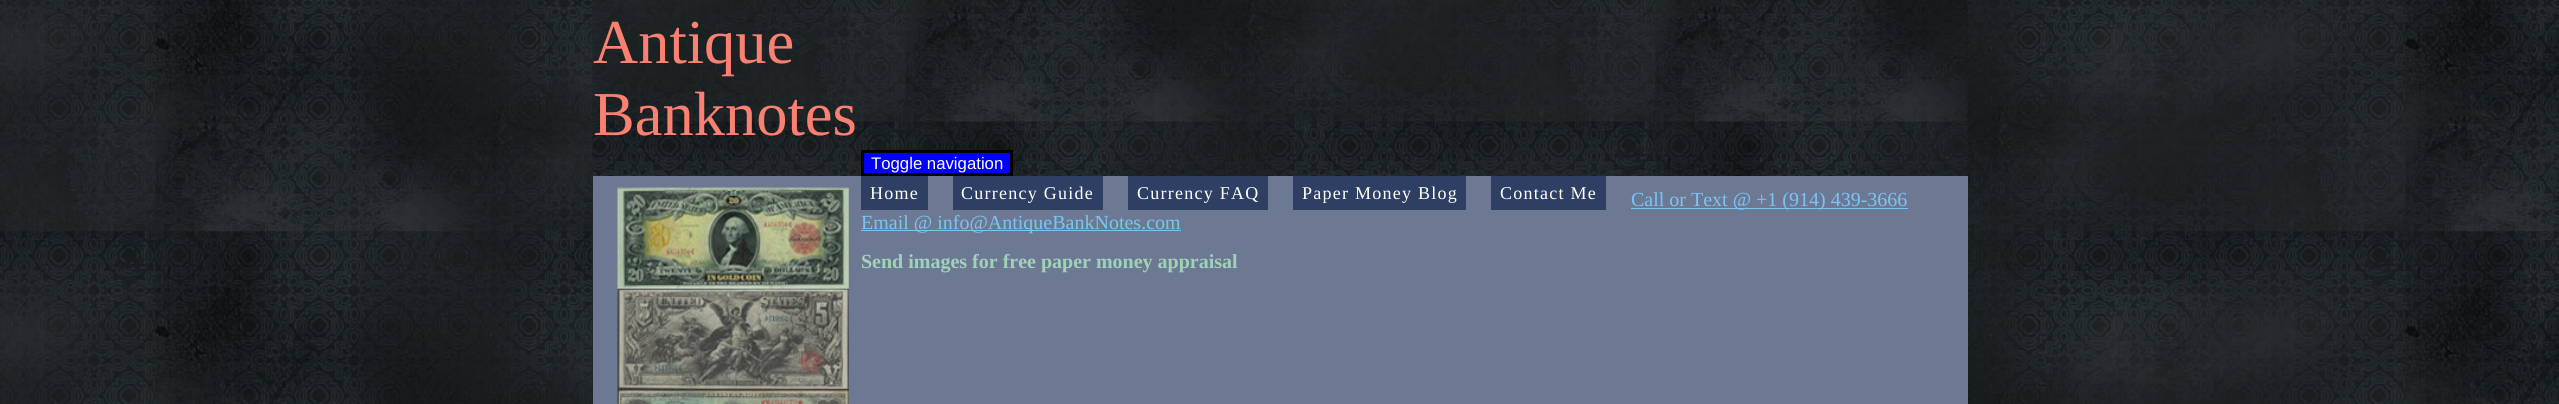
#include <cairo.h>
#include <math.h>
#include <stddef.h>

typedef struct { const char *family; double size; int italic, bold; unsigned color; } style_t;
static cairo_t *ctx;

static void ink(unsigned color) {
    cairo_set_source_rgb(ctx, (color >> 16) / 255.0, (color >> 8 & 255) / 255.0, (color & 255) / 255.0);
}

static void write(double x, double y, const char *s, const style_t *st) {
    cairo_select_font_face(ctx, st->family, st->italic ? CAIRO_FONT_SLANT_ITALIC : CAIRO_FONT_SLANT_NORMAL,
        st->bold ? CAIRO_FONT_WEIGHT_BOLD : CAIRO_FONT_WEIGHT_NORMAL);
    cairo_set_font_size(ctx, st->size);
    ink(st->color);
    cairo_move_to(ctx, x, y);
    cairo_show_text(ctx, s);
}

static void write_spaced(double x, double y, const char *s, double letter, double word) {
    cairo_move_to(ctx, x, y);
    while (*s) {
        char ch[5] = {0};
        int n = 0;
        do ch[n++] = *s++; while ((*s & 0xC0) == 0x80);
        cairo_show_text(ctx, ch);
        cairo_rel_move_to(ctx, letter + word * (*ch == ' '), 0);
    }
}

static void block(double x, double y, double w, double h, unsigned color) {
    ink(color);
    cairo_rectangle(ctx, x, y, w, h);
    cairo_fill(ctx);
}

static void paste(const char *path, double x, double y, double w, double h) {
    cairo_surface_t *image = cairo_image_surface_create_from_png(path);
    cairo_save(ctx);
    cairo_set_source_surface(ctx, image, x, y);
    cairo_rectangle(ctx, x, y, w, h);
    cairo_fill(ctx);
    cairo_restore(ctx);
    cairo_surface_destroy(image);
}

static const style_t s1 = {"Liberation Serif", 62.5, 0, 0, 0xfa8072};
static const style_t s2 = {"Liberation Sans", 16.75, 0, 0, 0xffffff};
static const style_t s3 = {"Liberation Serif", 20, 0, 0, 0x78c5f5};
static const style_t s4 = {"Liberation Serif", 20, 0, 1, 0xa0d2b9};

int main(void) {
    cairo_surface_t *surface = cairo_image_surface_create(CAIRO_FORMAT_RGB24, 2559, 404);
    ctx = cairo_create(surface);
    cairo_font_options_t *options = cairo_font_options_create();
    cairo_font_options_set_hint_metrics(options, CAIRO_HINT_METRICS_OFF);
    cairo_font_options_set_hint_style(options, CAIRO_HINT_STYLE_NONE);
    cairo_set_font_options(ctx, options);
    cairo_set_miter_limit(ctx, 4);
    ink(0xffffff);
    cairo_paint(ctx);
    paste("pic1.png", 0, 0, 2559, 404);
    paste("pic2.png", 592, 0, 1376, 404);
    write(593, 63, "Antique", &s1);
    write(593, 135, "Banknotes", &s1);
    ink(0x0000ff);
    cairo_rectangle(ctx, 862.5, 151.5, 149, 23);
    cairo_fill_preserve(ctx);
    ink(0x000000);
    cairo_set_line_width(ctx, 3);
    cairo_stroke(ctx);
    write(871, 169, "Toggle navigation", &s2);
    block(593, 176, 1375, 228, 0x6d7993);
    block(861, 176, 67, 34, 0x2f3f64);
    cairo_select_font_face(ctx, "Liberation Serif", CAIRO_FONT_SLANT_NORMAL, CAIRO_FONT_WEIGHT_NORMAL);
    cairo_set_font_size(ctx, 18);
    ink(0xffffff);
    write_spaced(870, 199, "Home", 1.25, 0);
    block(953, 176, 150, 34, 0x2f3f64);
    ink(0xffffff);
    write_spaced(961, 199, "Currency Guide", 1.25, 0);
    block(1128, 176, 140, 34, 0x2f3f64);
    ink(0xffffff);
    write_spaced(1137, 199, "Currency FAQ", 1.25, 0);
    block(1293, 176, 173, 34, 0x2f3f64);
    ink(0xffffff);
    write_spaced(1302, 199, "Paper Money Blog", 1.25, 0);
    block(1491, 176, 115, 34, 0x2f3f64);
    ink(0xffffff);
    write_spaced(1500, 199, "Contact Me", 1.25, 0);
    paste("pic3.png", 617, 187, 232, 102);
    paste("pic4.png", 617, 288, 232, 102);
    paste("pic5.png", 617, 390, 232, 14);
    block(1631, 208, 277, 1, 0x78c5f5);
    write(1631, 206, "Call or Text @ +1 (914) 439-3666", &s3);
    block(861, 230, 320, 1, 0x78c5f5);
    write(861, 229, "Email @ info@AntiqueBankNotes.com", &s3);
    write(861, 268, "Send images for free paper money appraisal", &s4);
    cairo_surface_write_to_png(surface, "screenshot.png");
    cairo_font_options_destroy(options);
    cairo_destroy(ctx);
    cairo_surface_destroy(surface);
    return 0;
}
